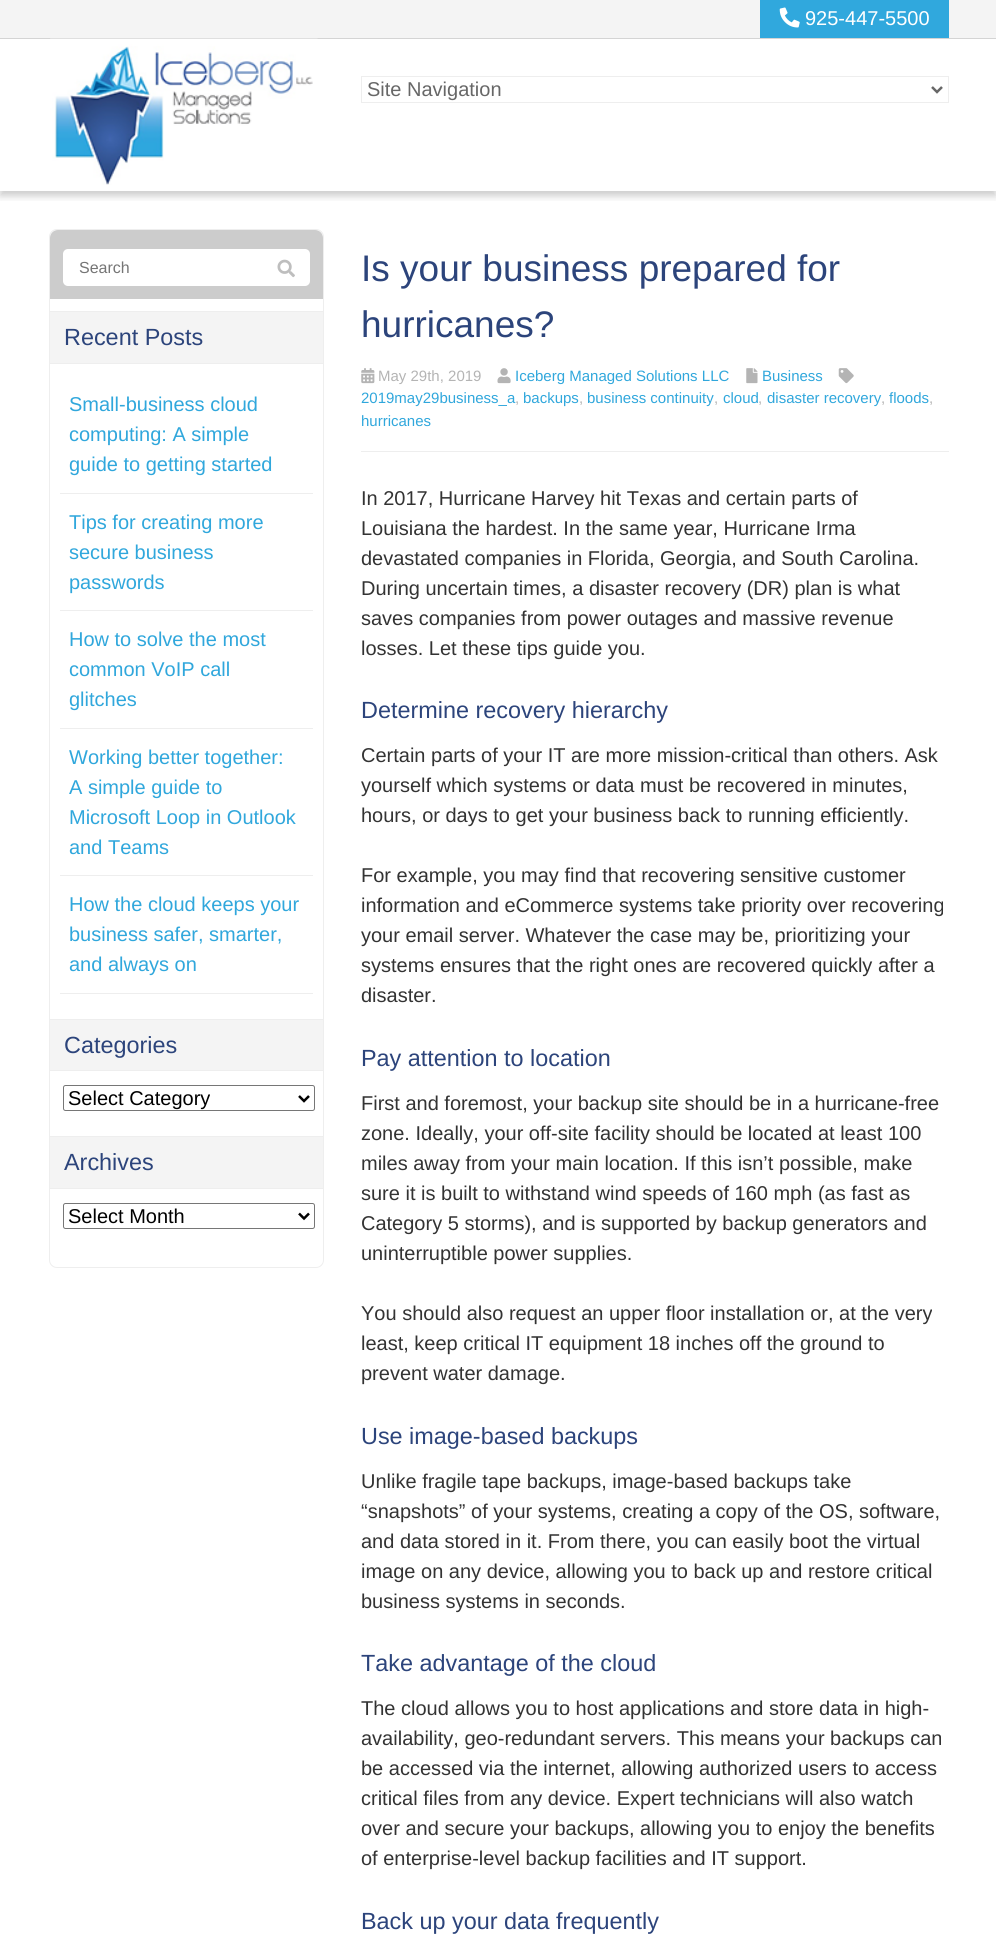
#include <cairo.h>
#include <math.h>
#include <stddef.h>

typedef struct { const char *family; double size; int italic, bold; unsigned color; } style_t;
static cairo_t *ctx;

static void ink(unsigned color) {
    cairo_set_source_rgb(ctx, (color >> 16) / 255.0, (color >> 8 & 255) / 255.0, (color & 255) / 255.0);
}

static void write(double x, double y, const char *s, const style_t *st) {
    cairo_select_font_face(ctx, st->family, st->italic ? CAIRO_FONT_SLANT_ITALIC : CAIRO_FONT_SLANT_NORMAL,
        st->bold ? CAIRO_FONT_WEIGHT_BOLD : CAIRO_FONT_WEIGHT_NORMAL);
    cairo_set_font_size(ctx, st->size);
    ink(st->color);
    cairo_move_to(ctx, x, y);
    cairo_show_text(ctx, s);
}

static void block(double x, double y, double w, double h, unsigned color) {
    ink(color);
    cairo_rectangle(ctx, x, y, w, h);
    cairo_fill(ctx);
}

static void round_path(double x, double y, double w, double h, double r) {
    cairo_new_sub_path(ctx);
    cairo_arc(ctx, x + w - r, y + h - r, r, 0, M_PI / 2);
    cairo_arc(ctx, x + r, y + h - r, r, M_PI / 2, M_PI);
    cairo_arc(ctx, x + r, y + r, r, M_PI, 1.5 * M_PI);
    cairo_arc(ctx, x + w - r, y + r, r, 1.5 * M_PI, 2 * M_PI);
    cairo_close_path(ctx);
}

static void blur_box(double x, double y, double w, double h, double r, double blur, double alpha) {
    cairo_push_group_with_content(ctx, CAIRO_CONTENT_ALPHA);
    cairo_set_operator(ctx, CAIRO_OPERATOR_SOURCE);
    for (int i = 15; i >= -15 && fmin(w, h) + blur * i / 3 > 0; i -= 2) {
        double e = blur * i / 6;
        cairo_set_source_rgba(ctx, 0, 0, 0, alpha * erfc((i - 1) / 8.5) / 2);
        round_path(x - e, y - e, w + 2 * e, h + 2 * e, fmax(0, fmin(r + e + blur * .6, fmin(w, h) / 2 + e)));
        cairo_fill(ctx);
    }
    cairo_pattern_t *soft = cairo_pop_group(ctx);
    cairo_mask(ctx, soft);
    cairo_pattern_destroy(soft);
}

static void paste(const char *path, double x, double y, double w, double h) {
    cairo_surface_t *image = cairo_image_surface_create_from_png(path);
    cairo_save(ctx);
    cairo_set_source_surface(ctx, image, x, y);
    cairo_rectangle(ctx, x, y, w, h);
    cairo_fill(ctx);
    cairo_restore(ctx);
    cairo_surface_destroy(image);
}

static const style_t s1 = {"Liberation Sans", 20, 0, 0, 0xffffff};
static const style_t s2 = {"Liberation Sans", 20, 0, 0, 0x676767};
static const style_t s3 = {"Liberation Sans", 16, 0, 0, 0x757575};
static const style_t s4 = {"Liberation Sans", 23.4, 0, 0, 0x2c447b};
static const style_t s5 = {"Liberation Sans", 20, 0, 0, 0x30a7dc};
static const style_t s6 = {"Liberation Sans", 20, 0, 0, 0x000000};
static const style_t s7 = {"Liberation Sans", 37, 0, 0, 0x2c447b};
static const style_t s8 = {"Liberation Sans", 15, 0, 0, 0xb4b4b4};
static const style_t s9 = {"Liberation Sans", 15, 0, 0, 0x30a7dc};
static const style_t s10 = {"Liberation Sans", 20, 0, 0, 0x333333};

int main(void) {
    cairo_surface_t *surface = cairo_image_surface_create(CAIRO_FORMAT_RGB24, 996, 1947);
    ctx = cairo_create(surface);
    cairo_font_options_t *options = cairo_font_options_create();
    cairo_font_options_set_hint_metrics(options, CAIRO_HINT_METRICS_OFF);
    cairo_font_options_set_hint_style(options, CAIRO_HINT_STYLE_NONE);
    cairo_set_font_options(ctx, options);
    cairo_set_miter_limit(ctx, 4);
    ink(0xffffff);
    cairo_paint(ctx);
    block(0, 0, 996, 38, 0xf4f4f4);
    block(0, 38, 996, 1, 0xd4d4d4);
    block(760, 0, 189, 38, 0x30a8dd);
    paste("pic1.png", 779, 7, 21, 21);
    write(805, 25, "925-447-5500", &s1);
    cairo_save(ctx);
    cairo_rectangle(ctx, 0, 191, 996, 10);
    cairo_clip(ctx);
    ink(0x000000);
    blur_box(0, 44, 996, 152, 0, 4, 0.2);
    cairo_restore(ctx);
    paste("pic2.png", 50, 38, 268, 147);
    cairo_rectangle(ctx, 361.5, 76.5, 587, 26);
    ink(0xeeeeee);
    cairo_set_line_width(ctx, 1);
    cairo_stroke(ctx);
    cairo_new_path(ctx);
    cairo_move_to(ctx, 932, 87);
    cairo_line_to(ctx, 937, 92);
    cairo_line_to(ctx, 942, 87);
    ink(0x676767);
    cairo_set_line_width(ctx, 2.5);
    cairo_stroke(ctx);
    write(367, 96, "Site Navigation", &s2);
    round_path(49.5, 229.5, 274, 1038, 7.5);
    ink(0xeeeeee);
    cairo_set_line_width(ctx, 1);
    cairo_stroke(ctx);
    ink(0xcccccc);
    cairo_new_path(ctx);
    cairo_move_to(ctx, 58, 230);
    cairo_line_to(ctx, 315, 230);
    cairo_curve_to(ctx, 319.5, 230, 323, 233.5, 323, 238);
    cairo_line_to(ctx, 323, 299);
    cairo_line_to(ctx, 50, 299);
    cairo_line_to(ctx, 50, 238);
    cairo_curve_to(ctx, 50, 233.5, 53.5, 230, 58, 230);
    cairo_close_path(ctx);
    cairo_fill(ctx);
    ink(0xffffff);
    round_path(63, 249, 247, 37, 5);
    cairo_fill(ctx);
    write(79, 273, "Search", &s3);
    paste("pic3.png", 277, 259, 18, 19);
    block(50, 312, 273, 51, 0xf4f4f4);
    block(50, 311, 273, 1, 0xeeeeee);
    block(50, 363, 273, 1, 0xeeeeee);
    write(64, 345, "Recent Posts", &s4);
    block(60, 493, 253, 1, 0xeeeeee);
    write(69, 411, "Small-business cloud", &s5);
    write(69, 441, "computing: A simple", &s5);
    write(69, 471, "guide to getting started", &s5);
    block(60, 610, 253, 1, 0xeeeeee);
    write(69, 529, "Tips for creating more", &s5);
    write(69, 559, "secure business", &s5);
    write(69, 589, "passwords", &s5);
    block(60, 728, 253, 1, 0xeeeeee);
    write(69, 646, "How to solve the most", &s5);
    write(69, 676, "common VoIP call", &s5);
    write(69, 706, "glitches", &s5);
    block(60, 875, 253, 1, 0xeeeeee);
    write(69, 764, "Working better together:", &s5);
    write(69, 794, "A simple guide to", &s5);
    write(69, 824, "Microsoft Loop in Outlook", &s5);
    write(69, 854, "and Teams", &s5);
    block(60, 993, 253, 1, 0xeeeeee);
    write(69, 911, "How the cloud keeps your", &s5);
    write(69, 941, "business safer, smarter,", &s5);
    write(69, 971, "and always on", &s5);
    block(50, 1020, 273, 50, 0xf4f4f4);
    block(50, 1019, 273, 1, 0xeeeeee);
    block(50, 1070, 273, 1, 0xeeeeee);
    write(64, 1053, "Categories", &s4);
    round_path(63.5, 1085.5, 251, 25, 2);
    ink(0x767676);
    cairo_stroke(ctx);
    cairo_new_path(ctx);
    cairo_move_to(ctx, 299, 1096);
    cairo_line_to(ctx, 304, 1101);
    cairo_line_to(ctx, 309, 1096);
    ink(0x000000);
    cairo_set_line_width(ctx, 2.5);
    cairo_stroke(ctx);
    write(68, 1105, "Select Category", &s6);
    block(50, 1137, 273, 51, 0xf4f4f4);
    block(50, 1136, 273, 1, 0xeeeeee);
    block(50, 1188, 273, 1, 0xeeeeee);
    write(64, 1170, "Archives", &s4);
    round_path(63.5, 1203.5, 251, 25, 2);
    ink(0x767676);
    cairo_set_line_width(ctx, 1);
    cairo_stroke(ctx);
    cairo_new_path(ctx);
    cairo_move_to(ctx, 299, 1213.5);
    cairo_line_to(ctx, 304, 1218.5);
    cairo_line_to(ctx, 309, 1213.5);
    ink(0x000000);
    cairo_set_line_width(ctx, 2.5);
    cairo_stroke(ctx);
    write(68, 1223, "Select Month", &s6);
    write(361, 281, "Is your business prepared for", &s7);
    write(361, 337, "hurricanes?", &s7);
    block(361, 451, 588, 1, 0xeeeeee);
    paste("pic4.png", 361, 368, 14, 16);
    write(378, 381, "May 29th, 2019", &s8);
    paste("pic5.png", 497, 368, 14, 16);
    write(515, 381, "Iceberg Managed Solutions LLC", &s9);
    paste("pic6.png", 746, 368, 12, 16);
    write(762, 381, "Business", &s9);
    paste("pic7.png", 838, 368, 16, 16);
    write(361, 403, "2019may29business_a", &s9);
    write(515, 403, ",", &s8);
    write(523, 403, "backups", &s9);
    write(579, 403, ",", &s8);
    write(587, 403, "business continuity", &s9);
    write(714, 403, ",", &s8);
    write(723, 403, "cloud", &s9);
    write(758, 403, ",", &s8);
    write(767, 403, "disaster recovery", &s9);
    write(881, 403, ",", &s8);
    write(889, 403, "floods", &s9);
    write(929, 403, ",", &s8);
    write(361, 426, "hurricanes", &s9);
    write(361, 505, "In 2017, Hurricane Harvey hit Texas and certain parts of", &s10);
    write(361, 535, "Louisiana the hardest. In the same year, Hurricane Irma", &s10);
    write(361, 565, "devastated companies in Florida, Georgia, and South Carolina.", &s10);
    write(361, 595, "During uncertain times, a disaster recovery (DR) plan is what", &s10);
    write(361, 625, "saves companies from power outages and massive revenue", &s10);
    write(361, 655, "losses. Let these tips guide you.", &s10);
    write(361, 718, "Determine recovery hierarchy", &s4);
    write(361, 762, "Certain parts of your IT are more mission-critical than others. Ask", &s10);
    write(361, 792, "yourself which systems or data must be recovered in minutes,", &s10);
    write(361, 822, "hours, or days to get your business back to running efficiently.", &s10);
    write(361, 882, "For example, you may find that recovering sensitive customer", &s10);
    write(361, 912, "information and eCommerce systems take priority over recovering", &s10);
    write(361, 942, "your email server. Whatever the case may be, prioritizing your", &s10);
    write(361, 972, "systems ensures that the right ones are recovered quickly after a", &s10);
    write(361, 1002, "disaster.", &s10);
    write(361, 1066, "Pay attention to location", &s4);
    write(361, 1110, "First and foremost, your backup site should be in a hurricane-free", &s10);
    write(361, 1140, "zone. Ideally, your off-site facility should be located at least 100", &s10);
    write(361, 1170, "miles away from your main location. If this isn’t possible, make", &s10);
    write(361, 1200, "sure it is built to withstand wind speeds of 160 mph (as fast as", &s10);
    write(361, 1230, "Category 5 storms), and is supported by backup generators and", &s10);
    write(361, 1260, "uninterruptible power supplies.", &s10);
    write(361, 1320, "You should also request an upper floor installation or, at the very", &s10);
    write(361, 1350, "least, keep critical IT equipment 18 inches off the ground to", &s10);
    write(361, 1380, "prevent water damage.", &s10);
    write(361, 1444, "Use image-based backups", &s4);
    write(361, 1488, "Unlike fragile tape backups, image-based backups take", &s10);
    write(361, 1518, "“snapshots” of your systems, creating a copy of the OS, software,", &s10);
    write(361, 1548, "and data stored in it. From there, you can easily boot the virtual", &s10);
    write(361, 1578, "image on any device, allowing you to back up and restore critical", &s10);
    write(361, 1608, "business systems in seconds.", &s10);
    write(361, 1671, "Take advantage of the cloud", &s4);
    write(361, 1715, "The cloud allows you to host applications and store data in high-", &s10);
    write(361, 1745, "availability, geo-redundant servers. This means your backups can", &s10);
    write(361, 1775, "be accessed via the internet, allowing authorized users to access", &s10);
    write(361, 1805, "critical files from any device. Expert technicians will also watch", &s10);
    write(361, 1835, "over and secure your backups, allowing you to enjoy the benefits", &s10);
    write(361, 1865, "of enterprise-level backup facilities and IT support.", &s10);
    write(361, 1929, "Back up your data frequently", &s4);
    cairo_surface_write_to_png(surface, "screenshot.png");
    cairo_font_options_destroy(options);
    cairo_destroy(ctx);
    cairo_surface_destroy(surface);
    return 0;
}
